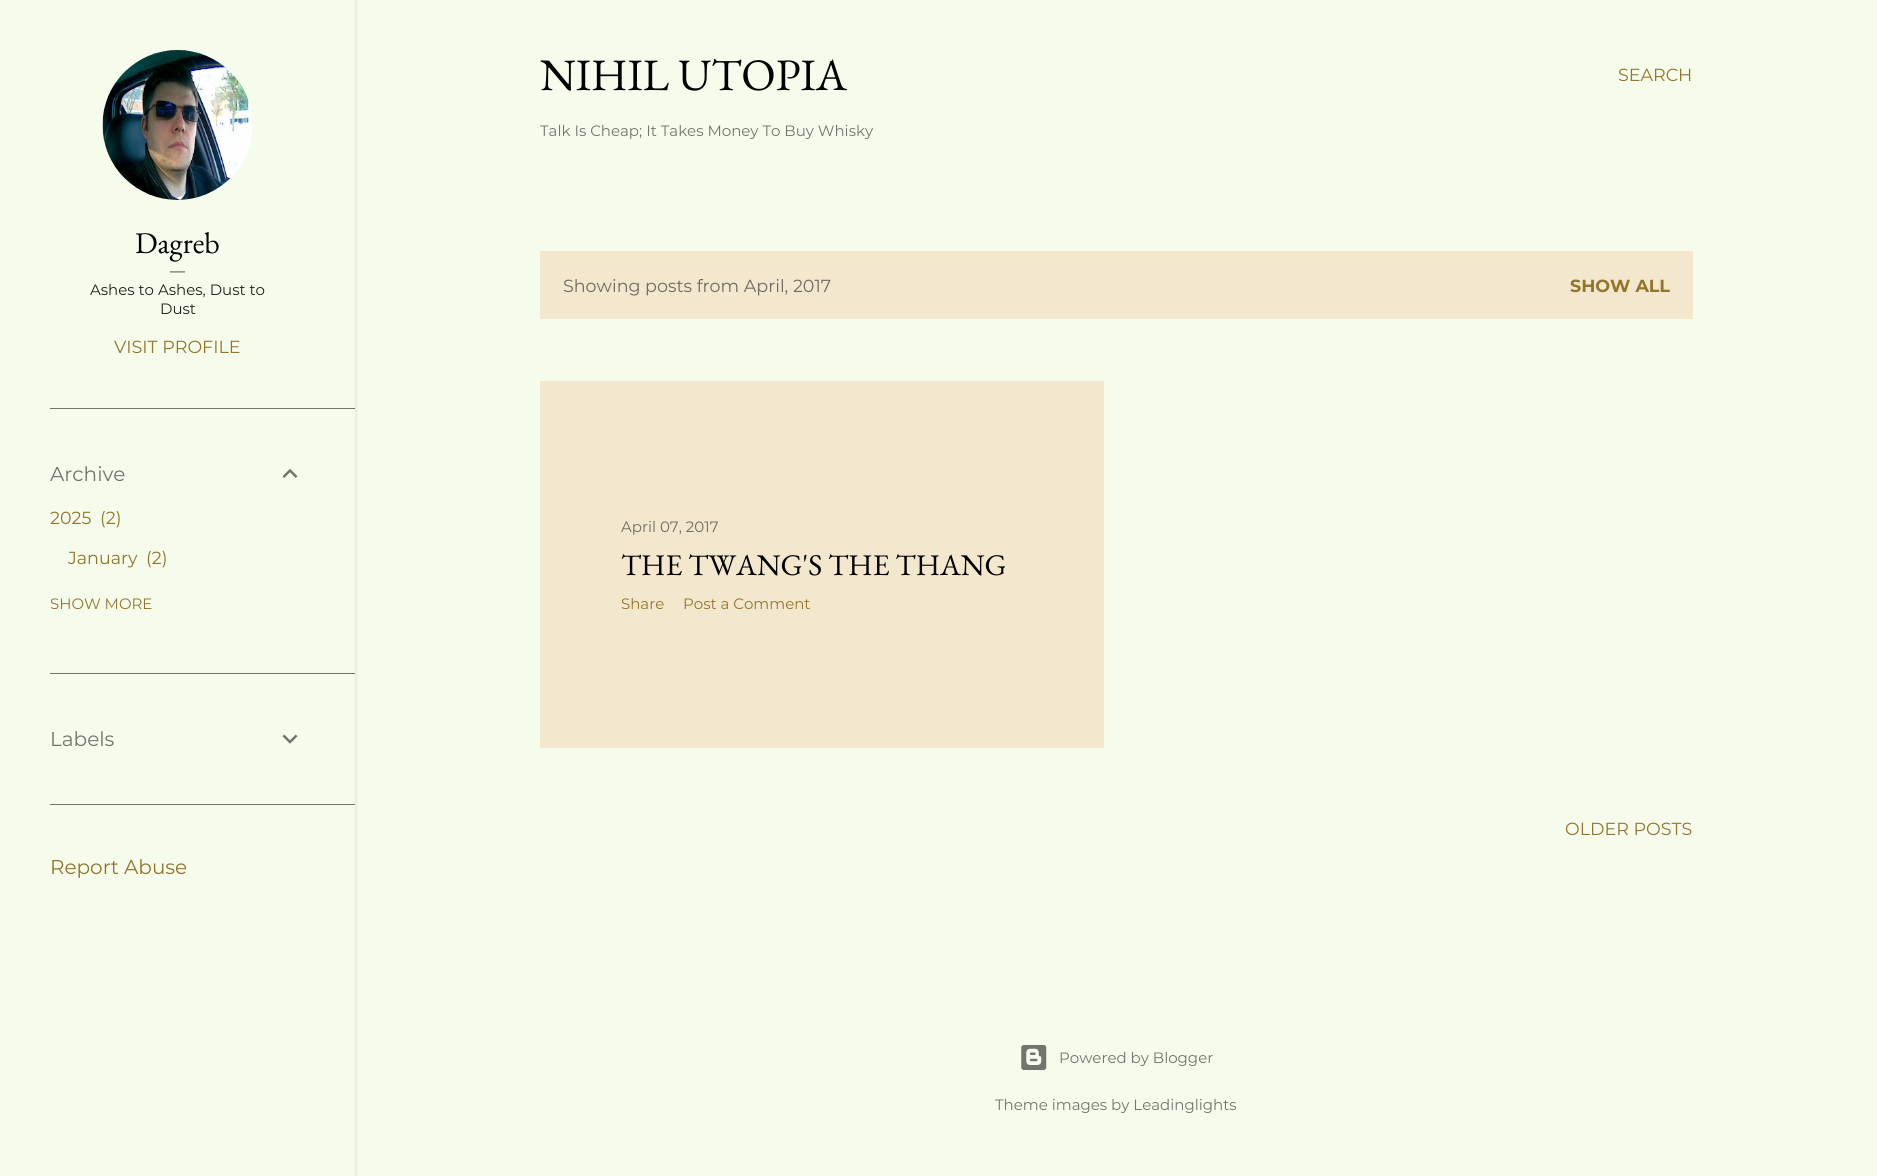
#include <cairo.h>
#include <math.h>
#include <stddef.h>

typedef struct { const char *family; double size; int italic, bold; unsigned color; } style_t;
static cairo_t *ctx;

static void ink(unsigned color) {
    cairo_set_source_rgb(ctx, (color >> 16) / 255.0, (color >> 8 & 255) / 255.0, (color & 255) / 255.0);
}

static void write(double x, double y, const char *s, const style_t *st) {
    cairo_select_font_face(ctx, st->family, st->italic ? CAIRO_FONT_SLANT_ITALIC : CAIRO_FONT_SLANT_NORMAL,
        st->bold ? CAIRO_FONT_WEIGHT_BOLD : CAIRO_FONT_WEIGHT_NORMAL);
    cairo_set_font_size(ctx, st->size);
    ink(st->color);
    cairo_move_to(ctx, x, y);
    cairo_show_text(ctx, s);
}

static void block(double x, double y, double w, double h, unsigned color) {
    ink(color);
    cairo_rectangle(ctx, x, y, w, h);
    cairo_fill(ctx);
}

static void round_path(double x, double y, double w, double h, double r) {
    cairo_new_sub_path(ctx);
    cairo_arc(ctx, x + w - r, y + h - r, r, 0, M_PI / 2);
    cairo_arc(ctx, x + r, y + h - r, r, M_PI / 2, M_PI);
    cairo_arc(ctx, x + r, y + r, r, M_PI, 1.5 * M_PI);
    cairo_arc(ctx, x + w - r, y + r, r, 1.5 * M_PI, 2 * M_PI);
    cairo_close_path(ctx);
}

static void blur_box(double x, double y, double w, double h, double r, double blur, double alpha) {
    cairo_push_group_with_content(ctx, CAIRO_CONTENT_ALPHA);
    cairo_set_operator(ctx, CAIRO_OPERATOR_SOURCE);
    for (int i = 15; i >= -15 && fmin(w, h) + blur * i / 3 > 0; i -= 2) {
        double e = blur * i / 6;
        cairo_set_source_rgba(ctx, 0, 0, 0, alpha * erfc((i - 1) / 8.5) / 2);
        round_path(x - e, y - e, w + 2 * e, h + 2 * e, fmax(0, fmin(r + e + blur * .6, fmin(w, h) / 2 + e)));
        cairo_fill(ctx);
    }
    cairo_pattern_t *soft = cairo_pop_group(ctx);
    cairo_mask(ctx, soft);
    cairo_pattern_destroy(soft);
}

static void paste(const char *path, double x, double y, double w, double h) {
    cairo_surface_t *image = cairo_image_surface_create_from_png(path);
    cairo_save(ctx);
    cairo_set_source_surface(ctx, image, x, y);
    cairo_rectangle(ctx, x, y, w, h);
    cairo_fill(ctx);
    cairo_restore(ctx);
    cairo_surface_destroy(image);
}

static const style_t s1 = {"EB Garamond", 30, 0, 0, 0x000000};
static const style_t s2 = {"Montserrat", 15, 0, 0, 0x21221f};
static const style_t s3 = {"Montserrat", 17.5, 0, 0, 0x93752c};
static const style_t s4 = {"Montserrat", 20, 0, 0, 0x72756d};
static const style_t s5 = {"Montserrat", 15, 0, 0, 0x93752c};
static const style_t s6 = {"Montserrat", 20, 0, 0, 0x93752c};
static const style_t s7 = {"EB Garamond", 45, 0, 0, 0x000000};
static const style_t s8 = {"Montserrat", 15, 0, 0, 0x72756d};
static const style_t s9 = {"Montserrat", 17.5, 0, 0, 0x716b5f};
static const style_t s10 = {"Montserrat", 17.5, 0, 1, 0x93752c};
static const style_t s11 = {"Montserrat", 15, 0, 0, 0x716b5f};

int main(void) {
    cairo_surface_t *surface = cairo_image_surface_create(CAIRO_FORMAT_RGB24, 1877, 1176);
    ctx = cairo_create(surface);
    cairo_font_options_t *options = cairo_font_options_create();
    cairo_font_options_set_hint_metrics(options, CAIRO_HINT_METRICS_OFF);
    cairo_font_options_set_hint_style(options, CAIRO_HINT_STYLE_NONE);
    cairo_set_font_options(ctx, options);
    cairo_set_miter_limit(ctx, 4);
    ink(0xf6fcec);
    cairo_paint(ctx);
    cairo_save(ctx);
    cairo_rectangle(ctx, 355, 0, 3, 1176);
    cairo_clip(ctx);
    ink(0x000000);
    blur_box(1, 0, 355, 1176, 0, 2, 0.1);
    cairo_restore(ctx);
    paste("pic1.png", 102, 50, 151, 150);
    write(135, 253, "Dagreb", &s1);
    write(170, 276, "—", &s2);
    write(90, 295, "Ashes to Ashes, Dust to", &s2);
    write(160, 314, "Dust", &s2);
    write(114, 353, "VISIT PROFILE", &s3);
    block(50, 408, 305, 1, 0x72756d);
    write(50, 481, "Archive", &s4);
    paste("pic2.png", 282, 469, 16, 9);
    write(50, 524, "2025", &s3);
    write(100, 524, "(2)", &s3);
    write(68, 564, "January", &s3);
    write(146, 564, "(2)", &s3);
    write(50, 609, "SHOW MORE", &s5);
    block(50, 673, 305, 1, 0x72756d);
    write(50, 746, "Labels", &s4);
    paste("pic3.png", 282, 734, 16, 10);
    block(50, 804, 305, 1, 0x72756d);
    write(50, 874, "Report Abuse", &s6);
    write(540, 90, "NIHIL UTOPIA", &s7);
    write(540, 136, "Talk Is Cheap; It Takes Money To Buy Whisky", &s8);
    write(1618, 81, "SEARCH", &s3);
    block(540, 251, 1153, 68, 0xf3e8ce);
    write(563, 292, "Showing posts from April, 2017", &s9);
    write(1570, 292, "SHOW ALL", &s10);
    block(540, 381, 564, 367, 0xf3e8ce);
    write(621, 532, "April 07, 2017", &s11);
    write(621, 575, "THE TWANG'S THE THANG", &s1);
    write(621, 609, "Share", &s5);
    write(683, 609, "Post a Comment", &s5);
    write(1565, 835, "OLDER POSTS", &s3);
    paste("pic4.png", 1021, 1045, 26, 25);
    write(1059, 1063, "Powered by Blogger", &s8);
    write(995, 1110, "Theme images by Leadinglights", &s8);
    cairo_surface_write_to_png(surface, "screenshot.png");
    cairo_font_options_destroy(options);
    cairo_destroy(ctx);
    cairo_surface_destroy(surface);
    return 0;
}
